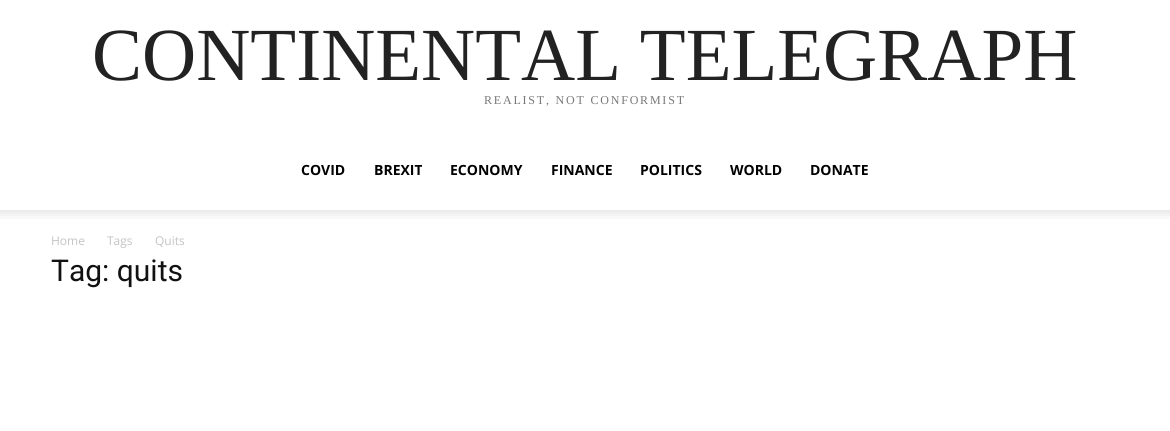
#include <cairo.h>
#include <math.h>
#include <stddef.h>

typedef struct { const char *family; double size; int italic, bold; unsigned color; } style_t;
static cairo_t *ctx;

static void ink(unsigned color) {
    cairo_set_source_rgb(ctx, (color >> 16) / 255.0, (color >> 8 & 255) / 255.0, (color & 255) / 255.0);
}

static void write(double x, double y, const char *s, const style_t *st) {
    cairo_select_font_face(ctx, st->family, st->italic ? CAIRO_FONT_SLANT_ITALIC : CAIRO_FONT_SLANT_NORMAL,
        st->bold ? CAIRO_FONT_WEIGHT_BOLD : CAIRO_FONT_WEIGHT_NORMAL);
    cairo_set_font_size(ctx, st->size);
    ink(st->color);
    cairo_move_to(ctx, x, y);
    cairo_show_text(ctx, s);
}

static void write_spaced(double x, double y, const char *s, double letter, double word) {
    cairo_move_to(ctx, x, y);
    while (*s) {
        char ch[5] = {0};
        int n = 0;
        do ch[n++] = *s++; while ((*s & 0xC0) == 0x80);
        cairo_show_text(ctx, ch);
        cairo_rel_move_to(ctx, letter + word * (*ch == ' '), 0);
    }
}

static void paste(const char *path, double x, double y, double w, double h) {
    cairo_surface_t *image = cairo_image_surface_create_from_png(path);
    cairo_save(ctx);
    cairo_set_source_surface(ctx, image, x, y);
    cairo_rectangle(ctx, x, y, w, h);
    cairo_fill(ctx);
    cairo_restore(ctx);
    cairo_surface_destroy(image);
}

static const style_t s1 = {"Liberation Serif", 75, 0, 0, 0x222222};
static const style_t s2 = {"Open Sans", 14, 0, 1, 0x000000};
static const style_t s3 = {"Open Sans", 12, 0, 0, 0xc3c3c3};
static const style_t s4 = {"Roboto", 30, 0, 0, 0x111111};

int main(void) {
    cairo_surface_t *surface = cairo_image_surface_create(CAIRO_FORMAT_RGB24, 1170, 431);
    ctx = cairo_create(surface);
    cairo_font_options_t *options = cairo_font_options_create();
    cairo_font_options_set_hint_metrics(options, CAIRO_HINT_METRICS_OFF);
    cairo_font_options_set_hint_style(options, CAIRO_HINT_STYLE_NONE);
    cairo_set_font_options(ctx, options);
    cairo_set_miter_limit(ctx, 4);
    ink(0xffffff);
    cairo_paint(ctx);
    write(92, 80, "CONTINENTAL TELEGRAPH", &s1);
    cairo_set_font_size(ctx, 12);
    ink(0x777777);
    write_spaced(484, 104, "REALIST, NOT CONFORMIST", 1.8, 0);
    write(301, 175, "COVID", &s2);
    write(374, 175, "BREXIT", &s2);
    write(450, 175, "ECONOMY", &s2);
    write(551, 175, "FINANCE", &s2);
    write(640, 175, "POLITICS", &s2);
    write(730, 175, "WORLD", &s2);
    write(810, 175, "DONATE", &s2);
    paste("pic1.png", 0, 210, 1170, 9);
    write(51, 245, "Home", &s3);
    write(107, 245, "Tags", &s3);
    write(155, 245, "Quits", &s3);
    write(51, 281, "Tag: quits", &s4);
    cairo_surface_write_to_png(surface, "screenshot.png");
    cairo_font_options_destroy(options);
    cairo_destroy(ctx);
    cairo_surface_destroy(surface);
    return 0;
}
